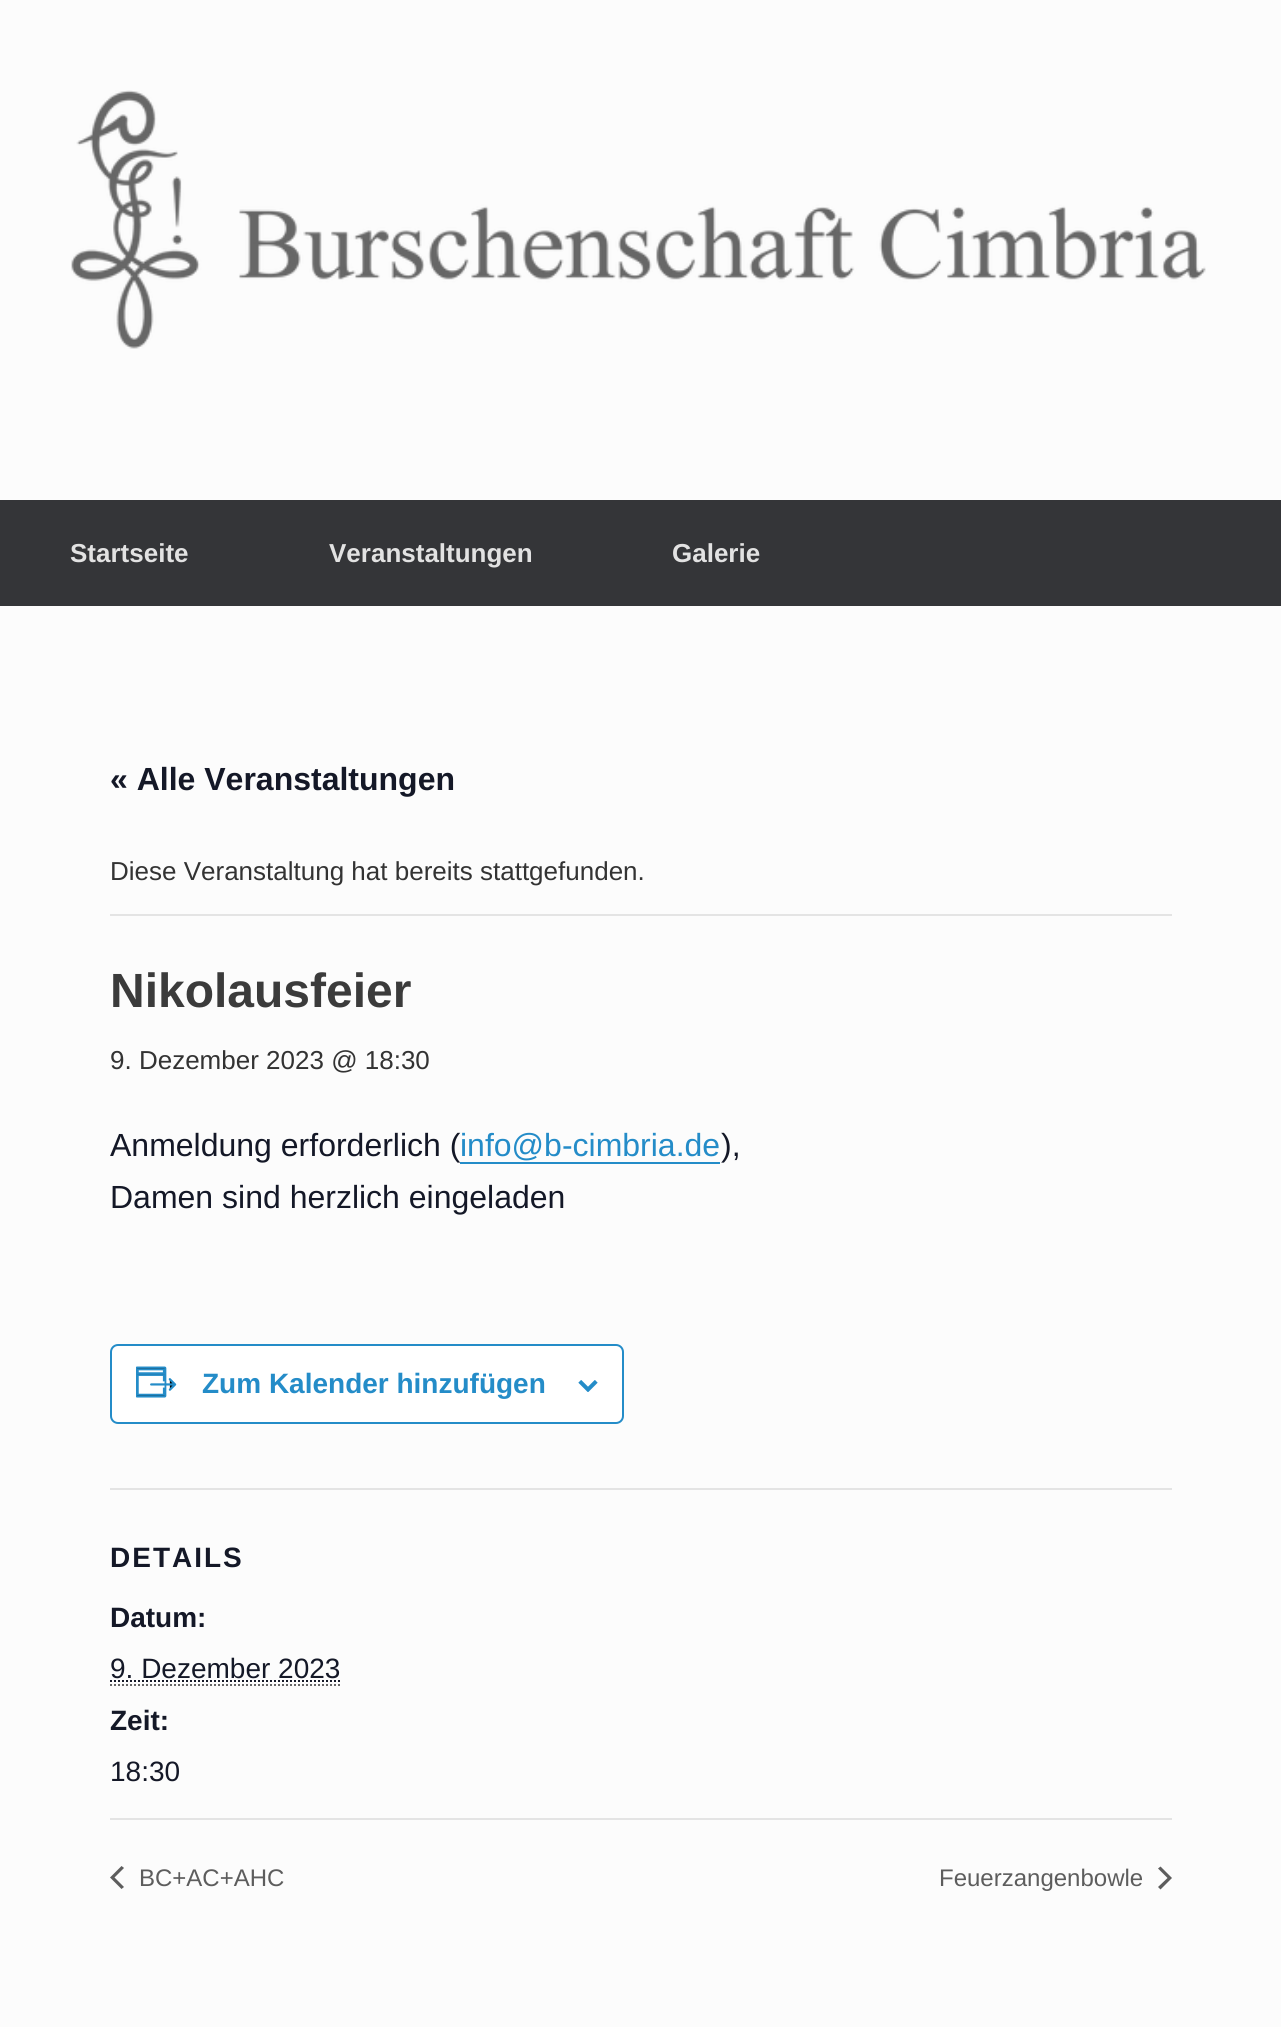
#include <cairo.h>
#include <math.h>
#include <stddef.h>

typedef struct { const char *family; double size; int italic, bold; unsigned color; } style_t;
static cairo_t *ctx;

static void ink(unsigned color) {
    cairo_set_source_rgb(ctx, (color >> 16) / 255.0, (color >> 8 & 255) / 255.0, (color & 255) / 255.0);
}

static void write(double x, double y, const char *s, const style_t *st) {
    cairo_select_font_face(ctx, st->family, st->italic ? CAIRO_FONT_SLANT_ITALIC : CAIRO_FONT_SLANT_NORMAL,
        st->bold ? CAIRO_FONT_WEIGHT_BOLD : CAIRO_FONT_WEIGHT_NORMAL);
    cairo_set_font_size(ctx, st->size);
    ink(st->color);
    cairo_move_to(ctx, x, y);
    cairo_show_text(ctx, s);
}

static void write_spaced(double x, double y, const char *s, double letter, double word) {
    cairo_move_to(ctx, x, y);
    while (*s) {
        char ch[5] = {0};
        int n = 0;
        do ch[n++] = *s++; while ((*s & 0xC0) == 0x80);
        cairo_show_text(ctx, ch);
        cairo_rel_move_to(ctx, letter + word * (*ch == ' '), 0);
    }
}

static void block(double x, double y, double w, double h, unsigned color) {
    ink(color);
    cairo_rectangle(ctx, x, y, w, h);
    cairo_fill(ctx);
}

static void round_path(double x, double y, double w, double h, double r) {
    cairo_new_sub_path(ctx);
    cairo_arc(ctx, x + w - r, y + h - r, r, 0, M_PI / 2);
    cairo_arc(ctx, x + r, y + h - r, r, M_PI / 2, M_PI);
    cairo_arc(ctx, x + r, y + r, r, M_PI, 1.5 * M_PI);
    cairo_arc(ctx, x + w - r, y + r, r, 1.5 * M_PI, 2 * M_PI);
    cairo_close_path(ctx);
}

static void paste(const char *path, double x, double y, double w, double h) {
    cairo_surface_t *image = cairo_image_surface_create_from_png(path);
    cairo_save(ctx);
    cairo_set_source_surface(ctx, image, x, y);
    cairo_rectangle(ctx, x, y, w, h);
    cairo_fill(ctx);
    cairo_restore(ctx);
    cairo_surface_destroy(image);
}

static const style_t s1 = {"Liberation Sans", 26, 0, 1, 0xe2e2e2};
static const style_t s2 = {"Liberation Sans", 32, 0, 1, 0x141827};
static const style_t s3 = {"Liberation Sans", 26, 0, 0, 0x333333};
static const style_t s4 = {"Liberation Sans", 48, 0, 1, 0x3b3b3b};
static const style_t s5 = {"Liberation Sans", 32, 0, 0, 0x141827};
static const style_t s6 = {"Liberation Sans", 32, 0, 0, 0x248cc8};
static const style_t s7 = {"Liberation Sans", 28, 0, 1, 0x248cc8};
static const style_t s8 = {"Liberation Sans", 28, 0, 1, 0x141827};
static const style_t s9 = {"Liberation Sans", 28, 0, 0, 0x141827};
static const style_t s10 = {"Liberation Sans", 24, 0, 0, 0x5d5d5d};

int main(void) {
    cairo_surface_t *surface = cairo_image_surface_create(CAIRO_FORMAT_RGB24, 1281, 2027);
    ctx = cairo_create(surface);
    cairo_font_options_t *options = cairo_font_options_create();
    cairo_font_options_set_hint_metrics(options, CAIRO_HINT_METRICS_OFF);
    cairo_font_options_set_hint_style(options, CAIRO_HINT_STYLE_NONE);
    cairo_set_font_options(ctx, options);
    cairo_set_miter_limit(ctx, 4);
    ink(0xfcfcfc);
    cairo_paint(ctx);
    paste("pic1.png", 71, 90, 1135, 259);
    block(0, 500, 1281, 106, 0x343538);
    write(70, 562, "Startseite", &s1);
    write(329, 562, "Veranstaltungen", &s1);
    write(672, 562, "Galerie", &s1);
    write(110, 790, "« Alle Veranstaltungen", &s2);
    block(110, 914, 1062, 2, 0xe4e4e4);
    write(110, 880, "Diese Veranstaltung hat bereits stattgefunden.", &s3);
    write(110, 1007, "Nikolausfeier", &s4);
    write(110, 1069, "9. Dezember 2023 @ 18:30", &s3);
    write(110, 1156, "Anmeldung erforderlich (", &s5);
    write(460, 1156, "info@b-cimbria.de", &s6);
    block(460, 1162, 260, 2, 0x248cc8);
    write(721, 1156, "),", &s5);
    write(110, 1208, "Damen sind herzlich eingeladen", &s5);
    ink(0xffffff);
    round_path(111, 1345, 512, 78, 7);
    cairo_fill_preserve(ctx);
    ink(0x248cc8);
    cairo_stroke(ctx);
    paste("pic2.png", 136, 1366, 41, 32);
    write(202, 1393, "Zum Kalender hinzufügen", &s7);
    paste("pic3.png", 578, 1380, 20, 12);
    block(110, 1488, 1062, 2, 0xe4e4e4);
    ink(0x141827);
    write_spaced(110, 1567, "DETAILS", 2, 0);
    write(110, 1627, "Datum:", &s8);
    write(110, 1678, "9. Dezember 2023", &s9);
    cairo_new_path(ctx);
    cairo_move_to(ctx, 110, 1685);
    cairo_line_to(ctx, 340, 1685);
    ink(0x666666);
    cairo_set_dash(ctx, (double[]){2, 2}, 2, 0);
    cairo_stroke(ctx);
    cairo_new_path(ctx);
    cairo_move_to(ctx, 110, 1681);
    cairo_line_to(ctx, 340.5, 1681);
    ink(0x141827);
    cairo_stroke(ctx);
    write(110, 1730, "Zeit:", &s8);
    write(110, 1781, "18:30", &s9);
    block(110, 1818, 1062, 2, 0xe4e4e4);
    ink(0x5d5d5d);
    cairo_new_path(ctx);
    cairo_move_to(ctx, 124, 1887);
    cairo_line_to(ctx, 121.5, 1889);
    cairo_line_to(ctx, 110, 1877.5);
    cairo_line_to(ctx, 121.5, 1866);
    cairo_line_to(ctx, 124, 1868);
    cairo_line_to(ctx, 114.5, 1877.5);
    cairo_close_path(ctx);
    cairo_fill(ctx);
    write(139, 1886, "BC+AC+AHC", &s10);
    write(939, 1886, "Feuerzangenbowle", &s10);
    cairo_new_path(ctx);
    cairo_move_to(ctx, 1158, 1868.5);
    cairo_line_to(ctx, 1160.5, 1866.5);
    cairo_line_to(ctx, 1172, 1878);
    cairo_line_to(ctx, 1160.5, 1889.5);
    cairo_line_to(ctx, 1158, 1887);
    cairo_line_to(ctx, 1167.5, 1878);
    cairo_close_path(ctx);
    cairo_fill(ctx);
    cairo_surface_write_to_png(surface, "screenshot.png");
    cairo_font_options_destroy(options);
    cairo_destroy(ctx);
    cairo_surface_destroy(surface);
    return 0;
}
